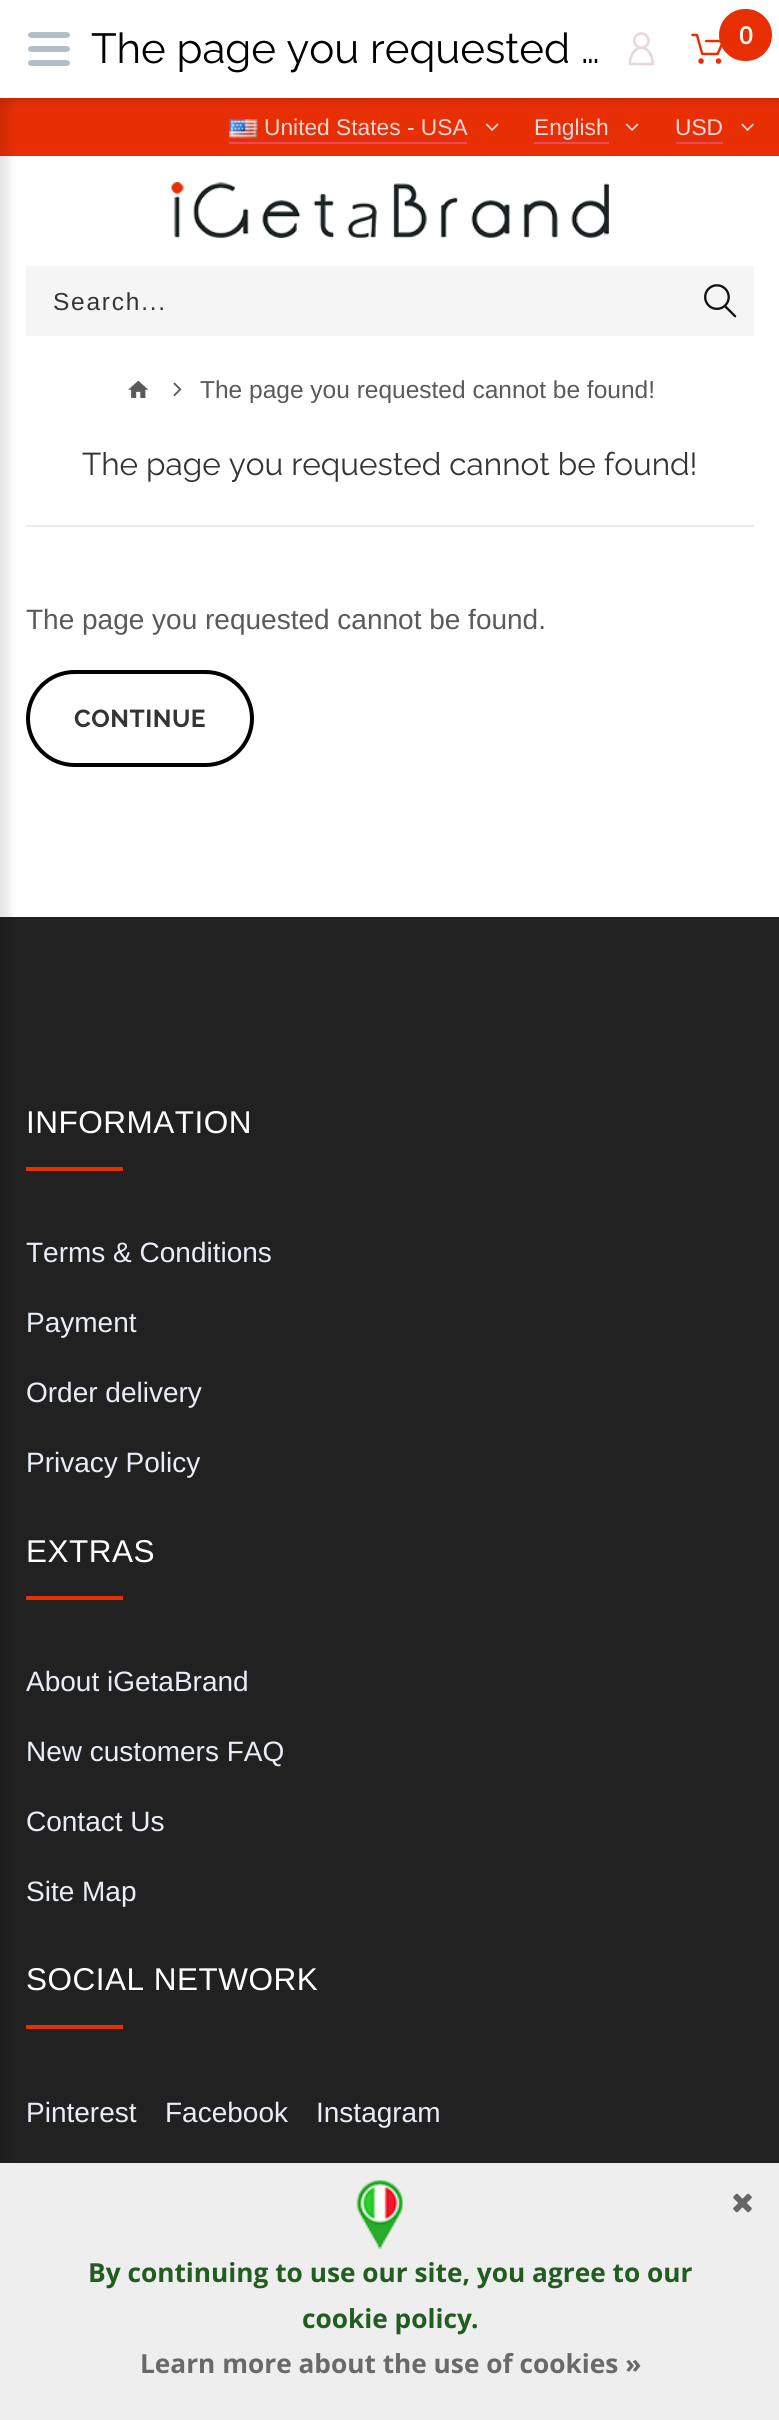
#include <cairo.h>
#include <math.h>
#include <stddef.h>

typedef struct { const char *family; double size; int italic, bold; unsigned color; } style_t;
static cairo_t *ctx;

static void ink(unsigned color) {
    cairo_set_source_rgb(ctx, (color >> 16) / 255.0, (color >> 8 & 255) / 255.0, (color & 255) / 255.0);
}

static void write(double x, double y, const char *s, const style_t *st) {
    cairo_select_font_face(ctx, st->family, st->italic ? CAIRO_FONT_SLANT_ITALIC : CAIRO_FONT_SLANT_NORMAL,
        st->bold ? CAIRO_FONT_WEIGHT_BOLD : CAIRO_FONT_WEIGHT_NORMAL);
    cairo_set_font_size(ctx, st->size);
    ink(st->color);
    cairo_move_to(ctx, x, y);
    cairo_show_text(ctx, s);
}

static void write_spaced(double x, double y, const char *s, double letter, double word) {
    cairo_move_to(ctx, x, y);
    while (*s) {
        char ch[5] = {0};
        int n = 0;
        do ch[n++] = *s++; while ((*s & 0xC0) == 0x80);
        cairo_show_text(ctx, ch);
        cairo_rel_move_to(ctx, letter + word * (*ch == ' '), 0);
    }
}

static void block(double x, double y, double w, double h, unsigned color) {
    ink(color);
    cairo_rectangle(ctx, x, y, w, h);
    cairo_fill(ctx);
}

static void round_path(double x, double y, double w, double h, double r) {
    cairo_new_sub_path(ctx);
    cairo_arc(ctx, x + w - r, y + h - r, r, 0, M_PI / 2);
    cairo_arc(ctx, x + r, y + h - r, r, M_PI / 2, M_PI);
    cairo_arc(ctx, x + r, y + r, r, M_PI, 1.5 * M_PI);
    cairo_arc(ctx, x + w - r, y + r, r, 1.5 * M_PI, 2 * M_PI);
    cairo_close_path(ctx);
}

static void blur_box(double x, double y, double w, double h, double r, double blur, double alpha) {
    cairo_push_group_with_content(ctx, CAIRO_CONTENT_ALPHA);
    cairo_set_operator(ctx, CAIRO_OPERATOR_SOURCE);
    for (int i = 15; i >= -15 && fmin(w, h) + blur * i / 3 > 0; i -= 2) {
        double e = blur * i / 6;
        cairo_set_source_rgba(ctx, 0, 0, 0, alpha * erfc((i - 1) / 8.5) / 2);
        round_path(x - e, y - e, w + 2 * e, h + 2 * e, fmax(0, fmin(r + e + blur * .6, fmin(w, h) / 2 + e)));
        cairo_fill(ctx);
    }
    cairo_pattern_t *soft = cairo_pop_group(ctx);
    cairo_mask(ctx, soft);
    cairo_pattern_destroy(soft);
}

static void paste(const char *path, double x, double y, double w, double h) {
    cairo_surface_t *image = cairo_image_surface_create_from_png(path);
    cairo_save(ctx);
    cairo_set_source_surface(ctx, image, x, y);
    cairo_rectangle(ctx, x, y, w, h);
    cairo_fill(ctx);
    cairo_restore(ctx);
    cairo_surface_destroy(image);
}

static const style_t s1 = {"Arimo", 24.5, 0, 1, 0xffffff};
static const style_t s2 = {"Arimo", 22.75, 0, 0, 0xe7d9d9};
static const style_t s3 = {"Arimo", 24.5, 0, 0, 0x5a5a5a};
static const style_t s4 = {"Raleway", 31.5, 0, 0, 0x343434};
static const style_t s5 = {"Arimo", 28, 0, 0, 0x5a5a5a};
static const style_t s6 = {"Open Sans", 26.25, 0, 1, 0x215d1f};
static const style_t s7 = {"Open Sans", 26.25, 0, 1, 0x696969};
static const style_t s8 = {"Arimo", 28, 0, 0, 0xe9edf6};
static const style_t s9 = {"Raleway", 42, 0, 0, 0x000000};

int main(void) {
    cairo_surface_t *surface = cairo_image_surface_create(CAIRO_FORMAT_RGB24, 779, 2420);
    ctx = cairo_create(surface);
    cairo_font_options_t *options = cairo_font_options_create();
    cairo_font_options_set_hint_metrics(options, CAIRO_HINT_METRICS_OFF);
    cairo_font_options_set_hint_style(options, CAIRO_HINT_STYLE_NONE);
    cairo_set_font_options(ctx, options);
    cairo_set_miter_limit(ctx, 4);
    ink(0xffffff);
    cairo_paint(ctx);
    block(0, 98, 779, 58, 0xe82f04);
    block(0, 917, 779, 1246, 0x212121);
    ink(0x000000);
    blur_box(-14, -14, 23, 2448, 0, 4.5, 0.1);
    blur_box(0, 5, 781, 98, 0, 2.5, 0.1);
    block(0, 0, 779, 98, 0xffffff);
    paste("pic1.png", 691, 33, 31, 31);
    ink(0xe82f04);
    round_path(719, 9, 53, 52, 26);
    cairo_fill(ctx);
    write(739, 44, "0", &s1);
    paste("pic2.png", 171, 182, 438, 56);
    paste("pic3.png", 628, 32, 27, 34);
    paste("pic4.png", 229, 119, 29, 20);
    write(264, 135, "United States - USA", &s2);
    block(229, 142, 238, 2, 0xec495e);
    paste("pic5.png", 485, 123, 14, 8);
    write(534, 135, "English", &s2);
    block(534, 142, 75, 2, 0xec495e);
    paste("pic5.png", 625, 123, 14, 8);
    write(675, 135, "USD", &s2);
    block(676, 142, 47, 2, 0xec495e);
    paste("pic6.png", 741, 123, 13, 8);
    block(26, 266, 728, 70, 0xf5f5f5);
    cairo_set_font_size(ctx, 24.5);
    ink(0x343434);
    write_spaced(53, 310, "Search...", 1.75, 0);
    paste("pic7.png", 704, 284, 33, 34);
    paste("pic8.png", 128, 380, 21, 18);
    paste("pic9.png", 173, 382, 9, 15);
    cairo_save(ctx);
    cairo_rectangle(ctx, 26, 373, 728, 30);
    cairo_clip(ctx);
    write(200, 398, "The page you requested cannot be found!", &s3);
    cairo_restore(ctx);
    write(82, 475, "The page you requested cannot be found!", &s4);
    block(26, 525, 728, 2, 0xebebeb);
    write(26, 629, "The page you requested cannot be found.", &s5);
    round_path(28, 672, 224, 93, 46.5);
    ink(0x000000);
    cairo_set_line_width(ctx, 4);
    cairo_stroke(ctx);
    cairo_select_font_face(ctx, "Raleway", CAIRO_FONT_SLANT_NORMAL, CAIRO_FONT_WEIGHT_BOLD);
    cairo_set_font_size(ctx, 24.5);
    ink(0x343434);
    write_spaced(74, 727, "CONTINUE", 0.5, 0);
    block(0, 2163, 779, 257, 0xeeeeee);
    paste("pic10.png", 733, 2193, 19, 20);
    paste("pic11.png", 356, 2180, 47, 69);
    write(88, 2282, "By continuing to use our site, you agree to our", &s6);
    write(302, 2328, "cookie policy", &s6);
    write(471, 2328, ".", &s6);
    write(140, 2373, "Learn more about the use of cookies »", &s7);
    cairo_select_font_face(ctx, "Arimo", CAIRO_FONT_SLANT_NORMAL, CAIRO_FONT_WEIGHT_NORMAL);
    cairo_set_font_size(ctx, 31.5);
    ink(0xffffff);
    write_spaced(26, 1133, "INFORMATION", 0.5, 0);
    block(26, 1167, 97, 4, 0xe82f04);
    write(26, 1262, "Terms & Conditions", &s8);
    write(26, 1332, "Payment", &s8);
    write(26, 1402, "Order delivery", &s8);
    write(26, 1472, "Privacy Policy", &s8);
    cairo_set_font_size(ctx, 31.5);
    ink(0xffffff);
    write_spaced(26, 1562, "EXTRAS", 0.5, 0);
    block(26, 1596, 97, 4, 0xe82f04);
    write(26, 1691, "About iGetaBrand", &s8);
    write(26, 1761, "New customers FAQ", &s8);
    write(26, 1831, "Contact Us", &s8);
    write(26, 1901, "Site Map", &s8);
    cairo_set_font_size(ctx, 31.5);
    ink(0xffffff);
    write_spaced(26, 1990, "SOCIAL NETWORK", 0.5, 0);
    block(26, 2025, 97, 4, 0xe82f04);
    write(26, 2122, "Pinterest", &s8);
    write(165, 2122, "Facebook", &s8);
    write(316, 2122, "Instagram", &s8);
    ink(0xb0bec5);
    cairo_new_path(ctx);
    cairo_move_to(ctx, 66, 52);
    cairo_line_to(ctx, 32, 52);
    cairo_curve_to(ctx, 30, 52, 28, 51, 28, 49);
    cairo_curve_to(ctx, 28, 47, 30, 46, 32, 46);
    cairo_line_to(ctx, 66, 46);
    cairo_curve_to(ctx, 68, 46, 70, 47, 70, 49);
    cairo_curve_to(ctx, 70, 51, 68, 52, 66, 52);
    cairo_close_path(ctx);
    cairo_move_to(ctx, 66, 66);
    cairo_line_to(ctx, 32, 66);
    cairo_curve_to(ctx, 30, 66, 28, 65, 28, 63);
    cairo_curve_to(ctx, 28, 61, 30, 60, 32, 60);
    cairo_line_to(ctx, 66, 60);
    cairo_curve_to(ctx, 68, 60, 70, 61, 70, 63);
    cairo_curve_to(ctx, 70, 65, 68, 66, 66, 66);
    cairo_close_path(ctx);
    cairo_move_to(ctx, 66, 38);
    cairo_line_to(ctx, 32, 38);
    cairo_curve_to(ctx, 30, 38, 28, 37, 28, 35);
    cairo_curve_to(ctx, 28, 33, 30, 32, 32, 32);
    cairo_line_to(ctx, 66, 32);
    cairo_curve_to(ctx, 68, 32, 70, 33, 70, 35);
    cairo_curve_to(ctx, 70, 37, 68, 38, 66, 38);
    cairo_close_path(ctx);
    cairo_fill(ctx);
    write(91, 63, "The page you requested …", &s9);
    cairo_surface_write_to_png(surface, "screenshot.png");
    cairo_font_options_destroy(options);
    cairo_destroy(ctx);
    cairo_surface_destroy(surface);
    return 0;
}
